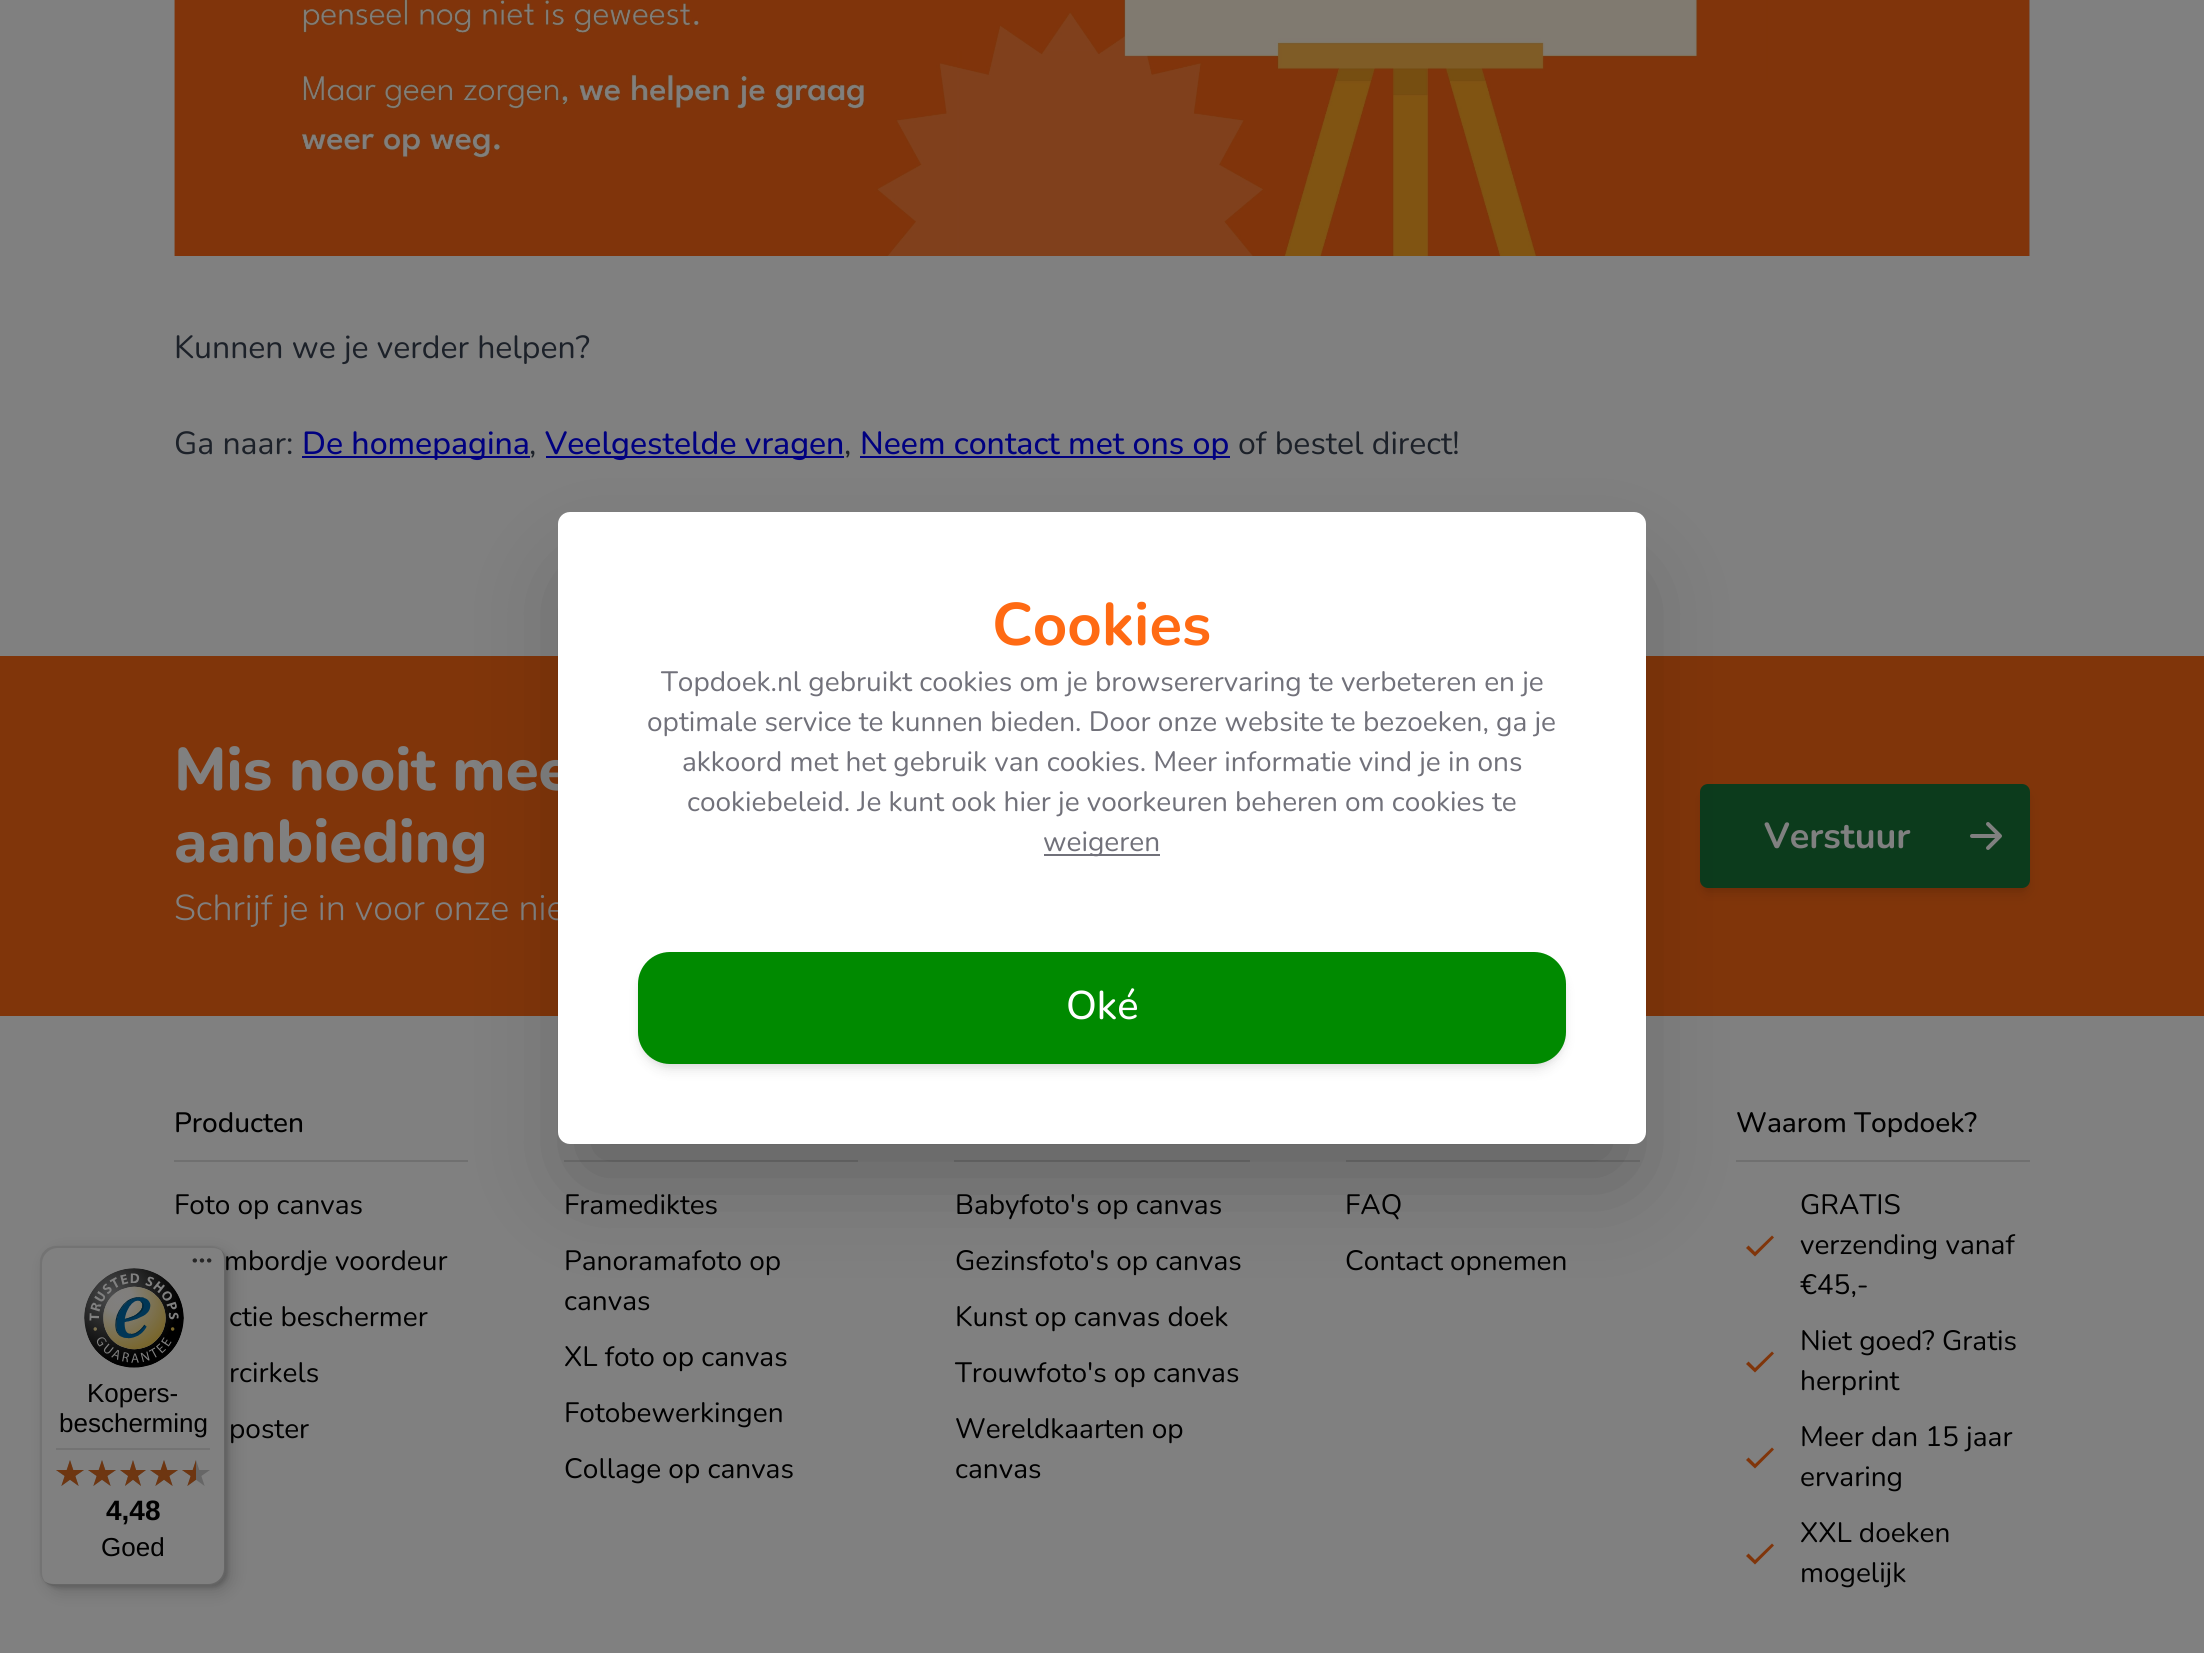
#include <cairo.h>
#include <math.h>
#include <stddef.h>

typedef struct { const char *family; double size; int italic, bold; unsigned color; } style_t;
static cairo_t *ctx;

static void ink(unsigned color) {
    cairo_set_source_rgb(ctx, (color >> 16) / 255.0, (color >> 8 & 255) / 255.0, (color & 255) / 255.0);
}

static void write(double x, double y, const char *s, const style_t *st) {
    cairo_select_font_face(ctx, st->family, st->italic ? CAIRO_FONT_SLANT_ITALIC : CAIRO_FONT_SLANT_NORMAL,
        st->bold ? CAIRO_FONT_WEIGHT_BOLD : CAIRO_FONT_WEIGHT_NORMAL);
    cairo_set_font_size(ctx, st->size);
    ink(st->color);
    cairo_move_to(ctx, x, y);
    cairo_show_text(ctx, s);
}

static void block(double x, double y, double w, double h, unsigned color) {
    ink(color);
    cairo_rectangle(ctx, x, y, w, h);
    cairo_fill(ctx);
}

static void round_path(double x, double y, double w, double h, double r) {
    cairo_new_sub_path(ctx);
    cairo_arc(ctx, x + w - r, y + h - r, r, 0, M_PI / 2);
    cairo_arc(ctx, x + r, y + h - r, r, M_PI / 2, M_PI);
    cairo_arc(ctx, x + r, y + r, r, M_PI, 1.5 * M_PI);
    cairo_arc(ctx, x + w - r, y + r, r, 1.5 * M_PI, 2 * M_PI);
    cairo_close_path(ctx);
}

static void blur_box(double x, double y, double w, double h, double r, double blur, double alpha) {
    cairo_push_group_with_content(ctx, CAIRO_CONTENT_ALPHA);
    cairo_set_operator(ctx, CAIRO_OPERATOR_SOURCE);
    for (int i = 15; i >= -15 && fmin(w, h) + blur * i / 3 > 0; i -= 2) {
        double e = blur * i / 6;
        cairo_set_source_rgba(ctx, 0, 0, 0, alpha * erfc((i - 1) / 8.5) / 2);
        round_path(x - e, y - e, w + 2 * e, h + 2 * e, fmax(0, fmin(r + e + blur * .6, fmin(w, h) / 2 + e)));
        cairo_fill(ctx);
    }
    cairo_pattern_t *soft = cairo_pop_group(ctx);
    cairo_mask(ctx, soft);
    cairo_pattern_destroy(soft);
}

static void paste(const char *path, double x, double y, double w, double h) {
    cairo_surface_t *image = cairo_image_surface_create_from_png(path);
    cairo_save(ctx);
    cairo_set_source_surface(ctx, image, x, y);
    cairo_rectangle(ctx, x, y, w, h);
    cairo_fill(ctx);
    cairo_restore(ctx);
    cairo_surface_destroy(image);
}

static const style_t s1 = {"Nunito", 32, 0, 0, 0x1c2129};
static const style_t s2 = {"Nunito Medium", 32, 0, 0, 0x000080};
static const style_t s3 = {"Nunito ExtraBold", 60, 0, 0, 0x808080};
static const style_t s4 = {"Nunito Light", 36, 0, 0, 0x808080};
static const style_t s5 = {"Nunito", 36, 0, 1, 0x808080};
static const style_t s6 = {"Nunito Medium", 28, 0, 0, 0x000000};
static const style_t s7 = {"Nunito", 28, 0, 0, 0x000000};
static const style_t s8 = {"Nunito", 60, 0, 1, 0xff6a13};
static const style_t s9 = {"Nunito", 28, 0, 0, 0x71717a};
static const style_t s10 = {"Nunito Medium", 40, 0, 0, 0xffffff};
static const style_t s11 = {"Liberation Sans", 26, 0, 0, 0x000000};
static const style_t s12 = {"Liberation Sans", 28, 0, 1, 0x000000};

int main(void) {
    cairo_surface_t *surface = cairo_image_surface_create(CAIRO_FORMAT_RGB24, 2204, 1653);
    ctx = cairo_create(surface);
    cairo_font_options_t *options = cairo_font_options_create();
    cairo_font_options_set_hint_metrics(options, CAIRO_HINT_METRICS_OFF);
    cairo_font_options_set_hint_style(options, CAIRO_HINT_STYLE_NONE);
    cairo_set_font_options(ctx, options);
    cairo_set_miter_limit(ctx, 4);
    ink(0x808080);
    cairo_paint(ctx);
    paste("pic1.png", 174, 0, 1856, 256);
    write(174, 358, "Kunnen we je verder helpen?", &s1);
    write(174, 454, "Ga naar:", &s1);
    block(302, 456, 228, 2, 0x000080);
    write(302, 454, "De homepagina", &s2);
    write(529, 454, ",", &s1);
    block(546, 456, 298, 2, 0x000080);
    write(545, 454, "Veelgestelde vragen", &s2);
    write(844, 454, ",", &s1);
    block(860, 456, 370, 2, 0x000080);
    write(860, 454, "Neem contact met ons op", &s2);
    write(1238, 454, "of bestel direct!", &s1);
    block(0, 656, 2204, 360, 0x80350a);
    write(174, 790, "Mis nooit mee", &s3);
    write(174, 862, "aanbieding", &s3);
    write(174, 920, "Schrijf je in voor onze nie", &s4);
    ink(0x000000);
    blur_box(1704, 792, 322, 96, 4, 4, 0.1);
    blur_box(1702, 794, 326, 100, 6, 6, 0.1);
    ink(0x0c3b1c);
    round_path(1700, 784, 330, 104, 8);
    cairo_fill(ctx);
    write(1764, 848, "Verstuur", &s5);
    paste("pic2.png", 1970, 822, 32, 28);
    block(174, 1160, 294, 2, 0x707070);
    write(174, 1132, "Producten", &s6);
    write(174, 1214, "Foto op canvas", &s7);
    write(224, 1270, "mbordje voordeur", &s7);
    write(229, 1326, "ctie beschermer", &s7);
    write(229, 1382, "rcirkels", &s7);
    write(229, 1438, "poster", &s7);
    block(564, 1160, 294, 2, 0x707070);
    write(564, 1214, "Framediktes", &s7);
    write(564, 1270, "Panoramafoto op", &s7);
    write(564, 1310, "canvas", &s7);
    write(564, 1366, "XL foto op canvas", &s7);
    write(564, 1422, "Fotobewerkingen", &s7);
    write(564, 1478, "Collage op canvas", &s7);
    block(954, 1160, 296, 2, 0x707070);
    write(955, 1214, "Babyfoto's op canvas", &s7);
    write(955, 1270, "Gezinsfoto's op canvas", &s7);
    write(955, 1326, "Kunst op canvas doek", &s7);
    write(955, 1382, "Trouwfoto's op canvas", &s7);
    write(955, 1438, "Wereldkaarten op", &s7);
    write(955, 1478, "canvas", &s7);
    block(1346, 1160, 294, 2, 0x707070);
    write(1345, 1214, "FAQ", &s7);
    write(1345, 1270, "Contact opnemen", &s7);
    block(1736, 1160, 294, 2, 0x707070);
    write(1736, 1132, "Waarom Topdoek?", &s6);
    ink(0x80350a);
    cairo_new_path(ctx);
    cairo_move_to(ctx, 1755, 1252);
    cairo_line_to(ctx, 1748.5, 1245.5);
    cairo_line_to(ctx, 1746, 1248);
    cairo_line_to(ctx, 1755, 1256.5);
    cairo_line_to(ctx, 1774, 1237.5);
    cairo_line_to(ctx, 1772, 1235.5);
    cairo_close_path(ctx);
    cairo_fill(ctx);
    write(1800, 1214, "GRATIS", &s7);
    write(1800, 1254, "verzending vanaf", &s7);
    write(1800, 1294, "€45,-", &s7);
    ink(0x80350a);
    cairo_new_path(ctx);
    cairo_move_to(ctx, 1755, 1368);
    cairo_line_to(ctx, 1748.5, 1361.5);
    cairo_line_to(ctx, 1746, 1364);
    cairo_line_to(ctx, 1755, 1372.5);
    cairo_line_to(ctx, 1774, 1353.5);
    cairo_line_to(ctx, 1772, 1351.5);
    cairo_close_path(ctx);
    cairo_fill(ctx);
    write(1800, 1350, "Niet goed? Gratis", &s7);
    write(1800, 1390, "herprint", &s7);
    ink(0x80350a);
    cairo_new_path(ctx);
    cairo_move_to(ctx, 1755, 1464);
    cairo_line_to(ctx, 1748.5, 1457.5);
    cairo_line_to(ctx, 1746, 1460);
    cairo_line_to(ctx, 1755, 1468.5);
    cairo_line_to(ctx, 1774, 1449.5);
    cairo_line_to(ctx, 1772, 1447.5);
    cairo_close_path(ctx);
    cairo_fill(ctx);
    write(1800, 1446, "Meer dan 15 jaar", &s7);
    write(1800, 1486, "ervaring", &s7);
    ink(0x80350a);
    cairo_new_path(ctx);
    cairo_move_to(ctx, 1755, 1560);
    cairo_line_to(ctx, 1748.5, 1553.5);
    cairo_line_to(ctx, 1746, 1556);
    cairo_line_to(ctx, 1755, 1564.5);
    cairo_line_to(ctx, 1774, 1545.5);
    cairo_line_to(ctx, 1772, 1543.5);
    cairo_close_path(ctx);
    cairo_fill(ctx);
    write(1800, 1542, "XXL doeken", &s7);
    write(1800, 1582, "mogelijk", &s7);
    ink(0x000000);
    blur_box(582, 586, 1040, 584, 0, 50, 0.25);
    ink(0xffffff);
    round_path(558, 512, 1088, 632, 12);
    cairo_fill(ctx);
    write(992, 645, "Cookies", &s8);
    write(661, 691, "Topdoek.nl gebruikt cookies om je browserervaring te verbeteren en je", &s9);
    write(647, 731, "optimale service te kunnen bieden. Door onze website te bezoeken, ga je", &s9);
    write(682, 771, "akkoord met het gebruik van cookies. Meer informatie vind je in ons", &s9);
    write(687, 811, "cookiebeleid. Je kunt ook hier je voorkeuren beheren om cookies te", &s9);
    block(1044, 854, 116, 2, 0x71717a);
    write(1043, 851, "weigeren", &s9);
    ink(0x000000);
    blur_box(642, 960, 920, 104, 28, 4, 0.1);
    blur_box(640, 962, 924, 108, 30, 6, 0.1);
    ink(0x008a00);
    round_path(638, 952, 928, 112, 32);
    cairo_fill(ctx);
    write(1066, 1019, "Oké", &s10);
    ink(0x000000);
    blur_box(46, 1252, 186, 340, 16, 8, 0.15);
    blur_box(42, 1248, 186, 340, 16, 2, 0.15);
    ink(0x808080);
    round_path(40, 1246, 186, 340, 16);
    cairo_fill(ctx);
    cairo_set_source_rgba(ctx, 0, 0, 0, 0.1);
    cairo_new_path(ctx);
    cairo_move_to(ctx, 58, 1248);
    cairo_line_to(ctx, 212, 1248);
    cairo_curve_to(ctx, 216, 1248, 219, 1249, 222, 1251);
    cairo_curve_to(ctx, 219, 1248, 215, 1246, 210, 1246);
    cairo_line_to(ctx, 56, 1246);
    cairo_curve_to(ctx, 47, 1246, 40, 1253, 40, 1262);
    cairo_line_to(ctx, 40, 1570);
    cairo_curve_to(ctx, 40, 1575, 42, 1579, 45, 1582);
    cairo_curve_to(ctx, 43, 1579, 42, 1576, 42, 1572);
    cairo_line_to(ctx, 42, 1264);
    cairo_curve_to(ctx, 42, 1255, 49, 1248, 58, 1248);
    cairo_close_path(ctx);
    cairo_fill(ctx);
    cairo_set_source_rgba(ctx, 0, 0, 0, 0.2);
    cairo_new_path(ctx);
    cairo_move_to(ctx, 44, 1581);
    cairo_curve_to(ctx, 47, 1584, 51, 1586, 56, 1586);
    cairo_line_to(ctx, 210, 1586);
    cairo_curve_to(ctx, 219, 1586, 226, 1579, 226, 1570);
    cairo_line_to(ctx, 226, 1262);
    cairo_curve_to(ctx, 226, 1257, 224, 1253, 221, 1250);
    cairo_curve_to(ctx, 223, 1253, 224, 1256, 224, 1260);
    cairo_line_to(ctx, 224, 1568);
    cairo_curve_to(ctx, 224, 1577, 217, 1584, 208, 1584);
    cairo_line_to(ctx, 54, 1584);
    cairo_curve_to(ctx, 50, 1584, 47, 1583, 44, 1581);
    cairo_close_path(ctx);
    cairo_fill(ctx);
    cairo_set_source_rgba(ctx, 0.098, 0.098, 0.098, 0.2);
    cairo_new_path(ctx);
    cairo_move_to(ctx, 45, 1581);
    cairo_curve_to(ctx, 48, 1584, 52, 1586, 56, 1586);
    cairo_line_to(ctx, 210, 1586);
    cairo_curve_to(ctx, 219, 1586, 226, 1579, 226, 1570);
    cairo_line_to(ctx, 226, 1262);
    cairo_curve_to(ctx, 226, 1258, 224, 1254, 221, 1251);
    cairo_curve_to(ctx, 224, 1254, 225, 1257, 225, 1261);
    cairo_line_to(ctx, 225, 1569);
    cairo_curve_to(ctx, 225, 1578, 218, 1585, 209, 1585);
    cairo_line_to(ctx, 55, 1585);
    cairo_curve_to(ctx, 51, 1585, 48, 1584, 45, 1581);
    cairo_close_path(ctx);
    cairo_fill(ctx);
    cairo_set_source_rgba(ctx, 0.502, 0.502, 0.502, 0.3);
    cairo_new_path(ctx);
    cairo_move_to(ctx, 45, 1581);
    cairo_curve_to(ctx, 48, 1584, 52, 1586, 56, 1586);
    cairo_line_to(ctx, 210, 1586);
    cairo_curve_to(ctx, 219, 1586, 226, 1579, 226, 1570);
    cairo_line_to(ctx, 226, 1262);
    cairo_curve_to(ctx, 226, 1258, 224, 1254, 221, 1251);
    cairo_curve_to(ctx, 224, 1254, 225, 1257, 225, 1261);
    cairo_line_to(ctx, 225, 1569);
    cairo_curve_to(ctx, 225, 1578, 218, 1585, 209, 1585);
    cairo_line_to(ctx, 55, 1585);
    cairo_curve_to(ctx, 51, 1585, 48, 1584, 45, 1581);
    cairo_close_path(ctx);
    cairo_fill(ctx);
    paste("pic3.png", 192, 1258, 20, 5);
    paste("pic4.png", 84, 1268, 100, 100);
    write(87, 1402, "Kopers-", &s11);
    write(59, 1432, "bescherming", &s11);
    block(56, 1448, 154, 2, 0x737373);
    paste("pic5.png", 56, 1460, 28, 26);
    paste("pic5.png", 88, 1460, 28, 26);
    paste("pic6.png", 120, 1460, 26, 26);
    paste("pic5.png", 150, 1460, 28, 26);
    paste("pic5.png", 182, 1460, 28, 26);
    paste("pic7.png", 56, 1460, 28, 26);
    paste("pic7.png", 88, 1460, 28, 26);
    paste("pic8.png", 120, 1460, 26, 26);
    paste("pic7.png", 150, 1460, 28, 26);
    paste("pic9.png", 182, 1460, 14, 26);
    write(106, 1520, "4,48", &s12);
    write(101, 1556, "Goed", &s11);
    cairo_surface_write_to_png(surface, "screenshot.png");
    cairo_font_options_destroy(options);
    cairo_destroy(ctx);
    cairo_surface_destroy(surface);
    return 0;
}
